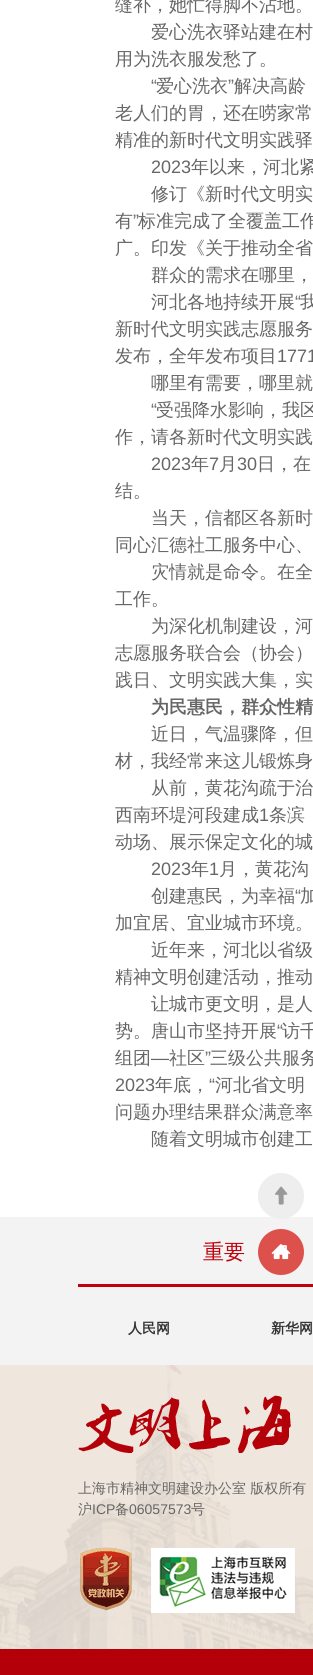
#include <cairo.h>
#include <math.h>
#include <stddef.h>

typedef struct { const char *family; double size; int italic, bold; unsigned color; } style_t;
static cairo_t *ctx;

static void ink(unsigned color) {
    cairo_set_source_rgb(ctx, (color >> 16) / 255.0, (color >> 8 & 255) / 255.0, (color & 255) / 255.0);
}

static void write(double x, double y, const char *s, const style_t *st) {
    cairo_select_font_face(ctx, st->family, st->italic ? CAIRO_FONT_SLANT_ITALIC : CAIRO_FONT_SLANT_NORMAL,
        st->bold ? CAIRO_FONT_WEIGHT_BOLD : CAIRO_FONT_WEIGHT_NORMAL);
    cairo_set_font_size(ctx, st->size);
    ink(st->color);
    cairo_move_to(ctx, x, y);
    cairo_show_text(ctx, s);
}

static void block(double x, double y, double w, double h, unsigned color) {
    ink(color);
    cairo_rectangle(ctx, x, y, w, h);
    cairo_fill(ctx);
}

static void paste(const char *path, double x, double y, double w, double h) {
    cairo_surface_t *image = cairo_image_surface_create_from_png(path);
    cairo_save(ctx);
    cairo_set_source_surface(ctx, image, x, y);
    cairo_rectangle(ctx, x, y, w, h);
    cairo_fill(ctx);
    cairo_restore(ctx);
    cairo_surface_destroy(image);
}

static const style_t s1 = {"WenQuanYi Zen Hei Medium", 18, 0, 0, 0x666666};
static const style_t s2 = {"Liberation Sans", 18, 0, 0, 0x666666};
static const style_t s3 = {"WenQuanYi Zen Hei", 18, 0, 1, 0x666666};
static const style_t s4 = {"WenQuanYi Zen Hei Medium", 21, 0, 0, 0xc1010c};
static const style_t s5 = {"WenQuanYi Zen Hei", 14, 0, 1, 0x333333};
static const style_t s6 = {"WenQuanYi Zen Hei Medium", 14, 0, 0, 0x666666};
static const style_t s7 = {"Liberation Sans", 14, 0, 0, 0x666666};

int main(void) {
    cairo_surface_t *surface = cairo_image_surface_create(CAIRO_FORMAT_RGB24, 313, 1675);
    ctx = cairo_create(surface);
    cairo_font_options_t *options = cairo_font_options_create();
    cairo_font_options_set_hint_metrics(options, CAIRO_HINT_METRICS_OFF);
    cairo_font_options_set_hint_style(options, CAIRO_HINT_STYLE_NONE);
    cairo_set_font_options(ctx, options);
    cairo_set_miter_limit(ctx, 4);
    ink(0xffffff);
    cairo_paint(ctx);
    write(115, 11, "缝补，她忙得脚不沾地。", &s1);
    write(151, 38, "爱心洗衣驿站建在村", &s1);
    write(115, 65, "用为洗衣服发愁了。", &s1);
    write(151, 92, "“", &s2);
    write(156, 92, "爱心洗衣", &s1);
    write(228, 92, "”", &s2);
    write(234, 92, "解决高龄", &s1);
    write(115, 119, "老人们的胃，还在唠家常", &s1);
    write(115, 146, "精准的新时代文明实践驿", &s1);
    write(151, 173, "2023", &s2);
    write(191, 173, "年以来，河北紧", &s1);
    write(151, 200, "修订《新时代文明实", &s1);
    write(115, 227, "有", &s1);
    write(133, 227, "”", &s2);
    write(138, 227, "标准完成了全覆盖工作", &s1);
    write(115, 254, "广。印发《关于推动全省", &s1);
    write(151, 281, "群众的需求在哪里，", &s1);
    write(151, 308, "河北各地持续开展", &s1);
    write(295, 308, "“", &s2);
    write(300, 308, "我", &s1);
    write(115, 335, "新时代文明实践志愿服务", &s1);
    write(115, 362, "发布，全年发布项目", &s1);
    write(277, 362, "1771", &s2);
    write(151, 389, "哪里有需要，哪里就", &s1);
    write(151, 416, "“", &s2);
    write(156, 416, "受强降水影响，我区", &s1);
    write(115, 443, "作，请各新时代文明实践", &s1);
    write(151, 470, "2023", &s2);
    write(191, 470, "年", &s1);
    write(209, 470, "7", &s2);
    write(219, 470, "月", &s1);
    write(237, 470, "30", &s2);
    write(257, 470, "日，在", &s1);
    write(115, 497, "结。", &s1);
    write(151, 524, "当天，信都区各新时", &s1);
    write(115, 551, "同心汇德社工服务中心、", &s1);
    write(151, 578, "灾情就是命令。在全", &s1);
    write(115, 605, "工作。", &s1);
    write(151, 632, "为深化机制建设，河", &s1);
    write(115, 659, "志愿服务联合会（协会）", &s1);
    write(115, 686, "践日、文明实践大集，实", &s1);
    write(151, 713, "为民惠民，群众性精", &s3);
    write(151, 740, "近日，气温骤降，但", &s1);
    write(115, 767, "材，我经常来这儿锻炼身", &s1);
    write(151, 794, "从前，黄花沟疏于治", &s1);
    write(115, 821, "西南环堤河段建成", &s1);
    write(259, 821, "1", &s2);
    write(269, 821, "条滨", &s1);
    write(115, 848, "动场、展示保定文化的城", &s1);
    write(151, 875, "2023", &s2);
    write(191, 875, "年", &s1);
    write(209, 875, "1", &s2);
    write(219, 875, "月，黄花沟", &s1);
    write(151, 902, "创建惠民，为幸福", &s1);
    write(295, 902, "“", &s2);
    write(300, 902, "加", &s1);
    write(115, 929, "加宜居、宜业城市环境。", &s1);
    write(151, 956, "近年来，河北以省级", &s1);
    write(115, 983, "精神文明创建活动，推动", &s1);
    write(151, 1010, "让城市更文明，是人", &s1);
    write(115, 1037, "势。唐山市坚持开展", &s1);
    write(277, 1037, "“", &s2);
    write(282, 1037, "访千", &s1);
    write(115, 1064, "组团", &s1);
    write(151, 1064, "—", &s2);
    write(169, 1064, "社区", &s1);
    write(205, 1064, "”", &s2);
    write(210, 1064, "三级公共服务", &s1);
    write(115, 1091, "2023", &s2);
    write(155, 1091, "年底，", &s1);
    write(209, 1091, "“", &s2);
    write(215, 1091, "河北省文明", &s1);
    write(115, 1118, "问题办理结果群众满意率", &s1);
    write(151, 1145, "随着文明城市创建工", &s1);
    block(0, 1217, 313, 148, 0xf3f3f3);
    ink(0xeeeeee);
    cairo_new_path(ctx);
    cairo_arc(ctx, 281, 1196, 23, 0, 2 * M_PI);
    cairo_fill(ctx);
    paste("pic1.png", 275, 1186, 13, 19);
    ink(0xdd514c);
    cairo_arc(ctx, 281, 1252, 23, 0, 2 * M_PI);
    cairo_fill(ctx);
    paste("pic2.png", 271, 1244, 20, 16);
    block(78, 1284, 235, 3, 0xc1010c);
    write(203, 1259, "重要", &s4);
    write(128, 1333, "人民网", &s5);
    write(271, 1333, "新华网", &s5);
    paste("pic3.png", 0, 1365, 313, 284);
    block(0, 1649, 313, 26, 0xb40009);
    paste("pic4.png", 78, 1395, 213, 58);
    write(78, 1493, "上海市精神文明建设办公室 版权所有", &s6);
    write(78, 1514, "沪", &s6);
    write(92, 1514, "ICP", &s7);
    write(115, 1514, "备", &s6);
    write(129, 1514, "06057573", &s7);
    write(191, 1514, "号", &s6);
    paste("pic5.png", 80, 1547, 52, 64);
    paste("pic6.png", 151, 1548, 144, 65);
    cairo_surface_write_to_png(surface, "screenshot.png");
    cairo_font_options_destroy(options);
    cairo_destroy(ctx);
    cairo_surface_destroy(surface);
    return 0;
}
